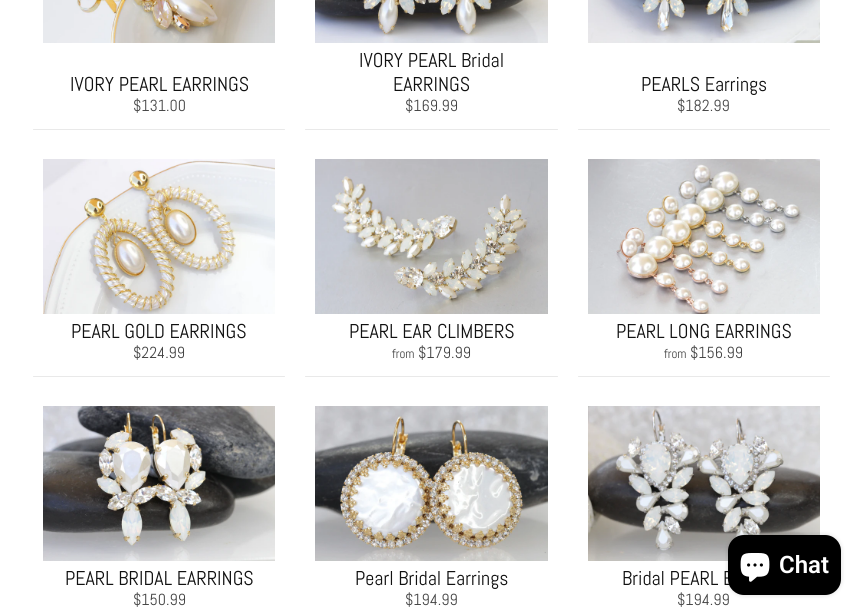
#include <cairo.h>
#include <math.h>
#include <stddef.h>

typedef struct { const char *family; double size; int italic, bold; unsigned color; } style_t;
static cairo_t *ctx;

static void ink(unsigned color) {
    cairo_set_source_rgb(ctx, (color >> 16) / 255.0, (color >> 8 & 255) / 255.0, (color & 255) / 255.0);
}

static void write(double x, double y, const char *s, const style_t *st) {
    cairo_select_font_face(ctx, st->family, st->italic ? CAIRO_FONT_SLANT_ITALIC : CAIRO_FONT_SLANT_NORMAL,
        st->bold ? CAIRO_FONT_WEIGHT_BOLD : CAIRO_FONT_WEIGHT_NORMAL);
    cairo_set_font_size(ctx, st->size);
    ink(st->color);
    cairo_move_to(ctx, x, y);
    cairo_show_text(ctx, s);
}

static void round_path(double x, double y, double w, double h, double r) {
    cairo_new_sub_path(ctx);
    cairo_arc(ctx, x + w - r, y + h - r, r, 0, M_PI / 2);
    cairo_arc(ctx, x + r, y + h - r, r, M_PI / 2, M_PI);
    cairo_arc(ctx, x + r, y + r, r, M_PI, 1.5 * M_PI);
    cairo_arc(ctx, x + w - r, y + r, r, 1.5 * M_PI, 2 * M_PI);
    cairo_close_path(ctx);
}

static void blur_box(double x, double y, double w, double h, double r, double blur, double alpha) {
    cairo_push_group_with_content(ctx, CAIRO_CONTENT_ALPHA);
    cairo_set_operator(ctx, CAIRO_OPERATOR_SOURCE);
    for (int i = 15; i >= -15 && fmin(w, h) + blur * i / 3 > 0; i -= 2) {
        double e = blur * i / 6;
        cairo_set_source_rgba(ctx, 0, 0, 0, alpha * erfc((i - 1) / 8.5) / 2);
        round_path(x - e, y - e, w + 2 * e, h + 2 * e, fmax(0, fmin(r + e + blur * .6, fmin(w, h) / 2 + e)));
        cairo_fill(ctx);
    }
    cairo_pattern_t *soft = cairo_pop_group(ctx);
    cairo_mask(ctx, soft);
    cairo_pattern_destroy(soft);
}

static void paste(const char *path, double x, double y, double w, double h) {
    cairo_surface_t *image = cairo_image_surface_create_from_png(path);
    cairo_save(ctx);
    cairo_set_source_surface(ctx, image, x, y);
    cairo_rectangle(ctx, x, y, w, h);
    cairo_fill(ctx);
    cairo_restore(ctx);
    cairo_surface_destroy(image);
}

static const style_t s1 = {"Abel", 20, 0, 0, 0x111111};
static const style_t s2 = {"Abel", 16, 0, 0, 0x444444};
static const style_t s3 = {"Abel", 13, 0, 0, 0x444444};
static const style_t s4 = {"Roboto SemiBold", 24, 0, 0, 0xffffff};

int main(void) {
    cairo_surface_t *surface = cairo_image_surface_create(CAIRO_FORMAT_RGB24, 863, 616);
    ctx = cairo_create(surface);
    cairo_font_options_t *options = cairo_font_options_create();
    cairo_font_options_set_hint_metrics(options, CAIRO_HINT_METRICS_OFF);
    cairo_font_options_set_hint_style(options, CAIRO_HINT_STYLE_NONE);
    cairo_set_font_options(ctx, options);
    cairo_set_miter_limit(ctx, 4);
    ink(0xffffff);
    cairo_paint(ctx);
    cairo_save(ctx);
    cairo_rectangle(ctx, 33, 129, 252, 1);
    cairo_clip(ctx);
    ink(0x000000);
    blur_box(33, -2, 252, 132, 0, 0.5, 0.1);
    cairo_restore(ctx);
    paste("pic1.png", 43, 0, 232, 43);
    write(70, 91, "IVORY PEARL EARRINGS", &s1);
    write(133, 111, "$131.00", &s2);
    cairo_save(ctx);
    cairo_rectangle(ctx, 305, 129, 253, 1);
    cairo_clip(ctx);
    ink(0x000000);
    blur_box(305, -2, 253, 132, 0, 0.5, 0.1);
    cairo_restore(ctx);
    paste("pic2.png", 315, 0, 233, 43);
    write(359, 67, "IVORY PEARL Bridal", &s1);
    write(393, 91, "EARRINGS", &s1);
    write(405, 111, "$169.99", &s2);
    cairo_save(ctx);
    cairo_rectangle(ctx, 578, 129, 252, 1);
    cairo_clip(ctx);
    ink(0x000000);
    blur_box(578, -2, 252, 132, 0, 0.5, 0.1);
    cairo_restore(ctx);
    paste("pic3.png", 588, 0, 232, 43);
    write(641, 91, "PEARLS Earrings", &s1);
    write(677, 111, "$182.99", &s2);
    cairo_save(ctx);
    cairo_rectangle(ctx, 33, 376, 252, 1);
    cairo_clip(ctx);
    ink(0x000000);
    blur_box(33, 150, 252, 227, 0, 0.5, 0.1);
    cairo_restore(ctx);
    paste("pic4.png", 43, 159, 232, 155);
    write(71, 338, "PEARL GOLD EARRINGS", &s1);
    write(133, 358, "$224.99", &s2);
    cairo_save(ctx);
    cairo_rectangle(ctx, 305, 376, 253, 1);
    cairo_clip(ctx);
    ink(0x000000);
    blur_box(305, 150, 253, 227, 0, 0.5, 0.1);
    cairo_restore(ctx);
    paste("pic5.png", 315, 159, 233, 155);
    write(349, 338, "PEARL EAR CLIMBERS", &s1);
    write(392, 358, "from", &s3);
    write(418, 358, "$179.99", &s2);
    cairo_save(ctx);
    cairo_rectangle(ctx, 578, 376, 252, 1);
    cairo_clip(ctx);
    ink(0x000000);
    blur_box(578, 150, 252, 227, 0, 0.5, 0.1);
    cairo_restore(ctx);
    paste("pic6.png", 588, 159, 232, 155);
    write(616, 338, "PEARL LONG EARRINGS", &s1);
    write(664, 358, "from", &s3);
    write(690, 358, "$156.99", &s2);
    paste("pic7.png", 43, 406, 232, 155);
    write(65, 585, "PEARL BRIDAL EARRINGS", &s1);
    write(133, 605, "$150.99", &s2);
    paste("pic8.png", 315, 406, 233, 155);
    write(355, 585, "Pearl Bridal Earrings", &s1);
    write(405, 605, "$194.99", &s2);
    paste("pic9.png", 588, 406, 232, 155);
    write(622, 585, "Bridal PEARL E", &s1);
    write(677, 605, "$194.99", &s2);
    ink(0x000000);
    blur_box(728, 535, 113, 60, 16, 2.5, 0.15);
    ink(0x000000);
    round_path(728, 535, 113, 60, 16);
    cairo_fill(ctx);
    paste("pic10.png", 740, 553, 30, 29);
    write(779, 573, "Chat", &s4);
    cairo_surface_write_to_png(surface, "screenshot.png");
    cairo_font_options_destroy(options);
    cairo_destroy(ctx);
    cairo_surface_destroy(surface);
    return 0;
}
